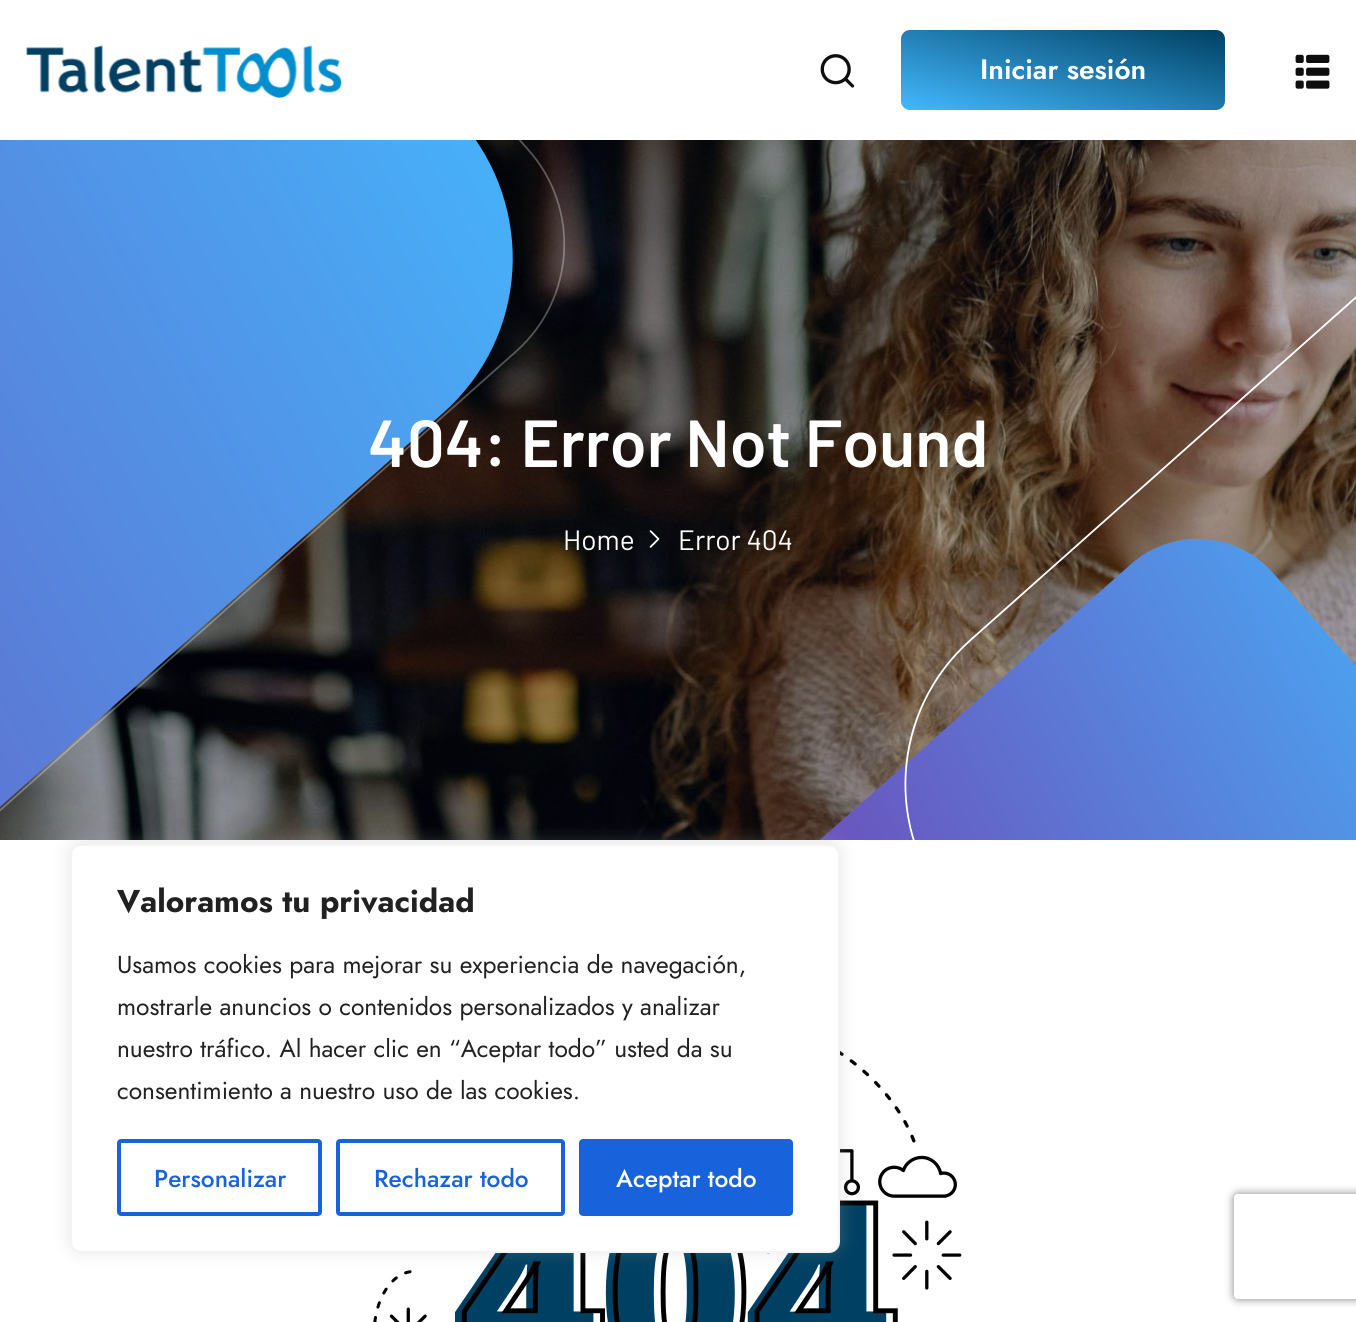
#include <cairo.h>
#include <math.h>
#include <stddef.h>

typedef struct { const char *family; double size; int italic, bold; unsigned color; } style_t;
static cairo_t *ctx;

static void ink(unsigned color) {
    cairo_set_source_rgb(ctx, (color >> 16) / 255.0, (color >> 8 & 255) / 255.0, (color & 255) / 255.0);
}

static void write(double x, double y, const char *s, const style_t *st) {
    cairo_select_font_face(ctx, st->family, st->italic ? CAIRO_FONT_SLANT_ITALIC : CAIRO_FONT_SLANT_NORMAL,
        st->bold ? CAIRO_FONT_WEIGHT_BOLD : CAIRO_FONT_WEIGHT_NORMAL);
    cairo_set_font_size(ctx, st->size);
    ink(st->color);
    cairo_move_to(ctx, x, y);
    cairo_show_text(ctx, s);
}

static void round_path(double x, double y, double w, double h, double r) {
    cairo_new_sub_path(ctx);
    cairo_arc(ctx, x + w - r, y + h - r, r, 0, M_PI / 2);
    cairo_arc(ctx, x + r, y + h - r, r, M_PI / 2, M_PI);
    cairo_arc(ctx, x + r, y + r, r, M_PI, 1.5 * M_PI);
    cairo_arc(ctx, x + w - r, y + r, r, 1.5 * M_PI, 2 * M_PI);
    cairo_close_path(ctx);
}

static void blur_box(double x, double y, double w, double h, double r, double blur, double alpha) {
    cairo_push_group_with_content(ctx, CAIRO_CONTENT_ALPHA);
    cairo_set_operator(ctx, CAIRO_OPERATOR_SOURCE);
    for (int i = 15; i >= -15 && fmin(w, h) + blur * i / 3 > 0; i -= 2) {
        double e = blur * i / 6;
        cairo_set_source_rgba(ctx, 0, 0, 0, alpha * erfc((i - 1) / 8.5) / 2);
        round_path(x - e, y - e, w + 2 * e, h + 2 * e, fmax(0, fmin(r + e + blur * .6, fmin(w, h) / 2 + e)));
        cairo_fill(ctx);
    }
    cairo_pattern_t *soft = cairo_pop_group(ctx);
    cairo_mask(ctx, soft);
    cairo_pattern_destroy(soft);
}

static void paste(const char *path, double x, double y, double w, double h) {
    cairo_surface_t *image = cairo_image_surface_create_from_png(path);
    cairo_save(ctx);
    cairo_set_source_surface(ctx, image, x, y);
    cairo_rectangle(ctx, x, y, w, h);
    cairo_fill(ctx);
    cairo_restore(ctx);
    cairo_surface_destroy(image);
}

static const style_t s1 = {"Jost SemiBold", 28, 0, 0, 0xffffff};
static const style_t s2 = {"Barlow SemiBold", 66.5, 0, 0, 0xffffff};
static const style_t s3 = {"Barlow", 28, 0, 0, 0xffffff};
static const style_t s4 = {"Jost", 31.5, 0, 1, 0x212121};
static const style_t s5 = {"Jost", 24.5, 0, 0, 0x212121};
static const style_t s6 = {"Jost Medium", 24.5, 0, 0, 0x1863dc};
static const style_t s7 = {"Jost Medium", 24.5, 0, 0, 0xffffff};

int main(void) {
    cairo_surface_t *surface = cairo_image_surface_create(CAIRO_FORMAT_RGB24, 1356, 1322);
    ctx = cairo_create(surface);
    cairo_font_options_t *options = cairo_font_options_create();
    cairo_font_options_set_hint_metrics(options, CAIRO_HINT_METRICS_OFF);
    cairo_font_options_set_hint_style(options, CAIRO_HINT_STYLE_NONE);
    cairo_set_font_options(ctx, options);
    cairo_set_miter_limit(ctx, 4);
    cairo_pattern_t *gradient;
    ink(0xffffff);
    cairo_paint(ctx);
    paste("pic1.png", 26, 45, 316, 53);
    paste("pic2.png", 820, 54, 35, 34);
    gradient = cairo_pattern_create_linear(1084, -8, 1042, 148);
    cairo_pattern_add_color_stop_rgba(gradient, 0, 0, 0.251, 0.384, 1);
    cairo_pattern_add_color_stop_rgba(gradient, 1, 0.259, 0.725, 1, 1);
    cairo_set_source(ctx, gradient);
    cairo_pattern_destroy(gradient);
    round_path(901, 30, 324, 80, 9);
    cairo_fill(ctx);
    write(980, 79, "Iniciar sesión", &s1);
    paste("pic3.png", 1295, 54, 35, 35);
    paste("pic4.png", 0, 140, 1356, 700);
    cairo_save(ctx);
    cairo_rectangle(ctx, 0, 140, 513, 700);
    cairo_clip(ctx);
    gradient = cairo_pattern_create_linear(319, -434, -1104, 364);
    cairo_pattern_add_color_stop_rgba(gradient, 0, 0.263, 0.729, 1, 1);
    cairo_pattern_add_color_stop_rgba(gradient, 1, 0.443, 0.255, 0.694, 1);
    cairo_set_source(ctx, gradient);
    cairo_pattern_destroy(gradient);
    cairo_new_path(ctx);
    cairo_move_to(ctx, -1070, 285);
    cairo_line_to(ctx, -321, -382);
    cairo_curve_to(ctx, -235, -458, -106, -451, -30, -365);
    cairo_line_to(ctx, 461, 121);
    cairo_curve_to(ctx, 536, 207, 529, 337, 443, 413);
    cairo_line_to(ctx, -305, 1078);
    cairo_curve_to(ctx, -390, 1154, -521, 1146, -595, 1061);
    cairo_line_to(ctx, -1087, 575);
    cairo_curve_to(ctx, -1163, 490, -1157, 359, -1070, 285);
    cairo_close_path(ctx);
    cairo_fill(ctx);
    cairo_restore(ctx);
    cairo_save(ctx);
    cairo_rectangle(ctx, 0, 140, 567, 700);
    cairo_clip(ctx);
    cairo_new_path(ctx);
    cairo_move_to(ctx, -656, 79);
    cairo_line_to(ctx, -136, -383);
    cairo_curve_to(ctx, -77, -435.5, 13.5, -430, 66, -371);
    cairo_line_to(ctx, 528, 149.5);
    cairo_curve_to(ctx, 580.5, 208, 575.5, 298.5, 516, 351.5);
    cairo_line_to(ctx, -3.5, 813.5);
    cairo_curve_to(ctx, -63, 866, -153.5, 860.5, -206, 801.5);
    cairo_line_to(ctx, -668, 281.5);
    cairo_curve_to(ctx, -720.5, 222.5, -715.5, 132, -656, 79);
    cairo_close_path(ctx);
    cairo_set_source_rgba(ctx, 1, 1, 1, 0.3);
    cairo_set_line_width(ctx, 1.8);
    cairo_stroke(ctx);
    cairo_restore(ctx);
    cairo_save(ctx);
    cairo_rectangle(ctx, 726, 539, 630, 301);
    cairo_clip(ctx);
    gradient = cairo_pattern_create_linear(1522, 539, 726, 962);
    cairo_pattern_add_color_stop_rgba(gradient, 0, 0.263, 0.729, 1, 1);
    cairo_pattern_add_color_stop_rgba(gradient, 1, 0.443, 0.255, 0.694, 1);
    cairo_set_source(ctx, gradient);
    cairo_pattern_destroy(gradient);
    cairo_new_path(ctx);
    cairo_move_to(ctx, 760, 893);
    cairo_line_to(ctx, 1130, 565);
    cairo_curve_to(ctx, 1172, 527, 1236, 531, 1273, 573);
    cairo_line_to(ctx, 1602, 942);
    cairo_curve_to(ctx, 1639, 984, 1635, 1049, 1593, 1086);
    cairo_line_to(ctx, 1224, 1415);
    cairo_curve_to(ctx, 1182, 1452, 1118, 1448, 1080, 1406);
    cairo_line_to(ctx, 752, 1037);
    cairo_curve_to(ctx, 715, 995, 718, 930, 760, 893);
    cairo_close_path(ctx);
    cairo_fill(ctx);
    cairo_restore(ctx);
    cairo_save(ctx);
    cairo_rectangle(ctx, 903, 140, 453, 700);
    cairo_clip(ctx);
    cairo_new_path(ctx);
    cairo_move_to(ctx, 970, 640.5);
    cairo_line_to(ctx, 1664.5, 23);
    cairo_curve_to(ctx, 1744, -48, 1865, -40, 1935.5, 39);
    cairo_line_to(ctx, 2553, 733.5);
    cairo_curve_to(ctx, 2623.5, 813, 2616, 934, 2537, 1004.5);
    cairo_line_to(ctx, 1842.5, 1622);
    cairo_curve_to(ctx, 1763, 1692.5, 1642, 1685, 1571.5, 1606);
    cairo_line_to(ctx, 954, 911.5);
    cairo_curve_to(ctx, 883, 832, 891, 711, 970, 640.5);
    cairo_close_path(ctx);
    cairo_set_line_width(ctx, 1.8);
    cairo_stroke(ctx);
    cairo_restore(ctx);
    write(368, 467, "404: Error Not Found", &s2);
    write(563, 550, "Home", &s3);
    paste("pic5.png", 649, 530, 11, 18);
    write(678, 550, "Error 404", &s3);
    paste("pic6.png", 373, 1051, 589, 271);
    ink(0xacabab);
    blur_box(70, 842, 770, 409, 11, 9, 0.3);
    ink(0xffffff);
    round_path(71, 845, 768, 407, 10);
    cairo_fill_preserve(ctx);
    ink(0xf4f4f4);
    cairo_stroke(ctx);
    write(117, 912, "Valoramos tu privacidad", &s4);
    write(117, 973, "Usamos cookies para mejorar su experiencia de navegación,", &s5);
    write(117, 1015, "mostrarle anuncios o contenidos personalizados y analizar", &s5);
    write(117, 1057, "nuestro tráfico. Al hacer clic en “Aceptar todo” usted da su", &s5);
    write(117, 1099, "consentimiento a nuestro uso de las cookies.", &s5);
    round_path(119, 1141, 201, 73, 2);
    ink(0x1863dc);
    cairo_set_line_width(ctx, 4);
    cairo_stroke(ctx);
    write(154, 1187, "Personalizar", &s6);
    round_path(338, 1141, 225, 73, 2);
    cairo_stroke(ctx);
    write(374, 1187, "Rechazar todo", &s6);
    round_path(581, 1141, 210, 73, 2);
    cairo_fill_preserve(ctx);
    cairo_stroke(ctx);
    write(616, 1187, "Aceptar todo", &s7);
    cairo_save(ctx);
    cairo_set_fill_rule(ctx, CAIRO_FILL_RULE_EVEN_ODD);
    cairo_new_path(ctx);
    cairo_move_to(ctx, 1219, 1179);
    cairo_line_to(ctx, 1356, 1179);
    cairo_line_to(ctx, 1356, 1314);
    cairo_line_to(ctx, 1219, 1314);
    cairo_close_path(ctx);
    cairo_move_to(ctx, 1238, 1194);
    cairo_line_to(ctx, 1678, 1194);
    cairo_curve_to(ctx, 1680, 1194, 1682, 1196, 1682, 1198);
    cairo_line_to(ctx, 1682, 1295);
    cairo_curve_to(ctx, 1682, 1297, 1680, 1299, 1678, 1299);
    cairo_line_to(ctx, 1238, 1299);
    cairo_curve_to(ctx, 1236, 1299, 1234, 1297, 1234, 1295);
    cairo_line_to(ctx, 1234, 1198);
    cairo_curve_to(ctx, 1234, 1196, 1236, 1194, 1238, 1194);
    cairo_close_path(ctx);
    cairo_clip(ctx);
    ink(0x808080);
    blur_box(1234, 1194, 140, 105, 4, 4.5, 1);
    cairo_restore(ctx);
    cairo_surface_write_to_png(surface, "screenshot.png");
    cairo_font_options_destroy(options);
    cairo_destroy(ctx);
    cairo_surface_destroy(surface);
    return 0;
}
